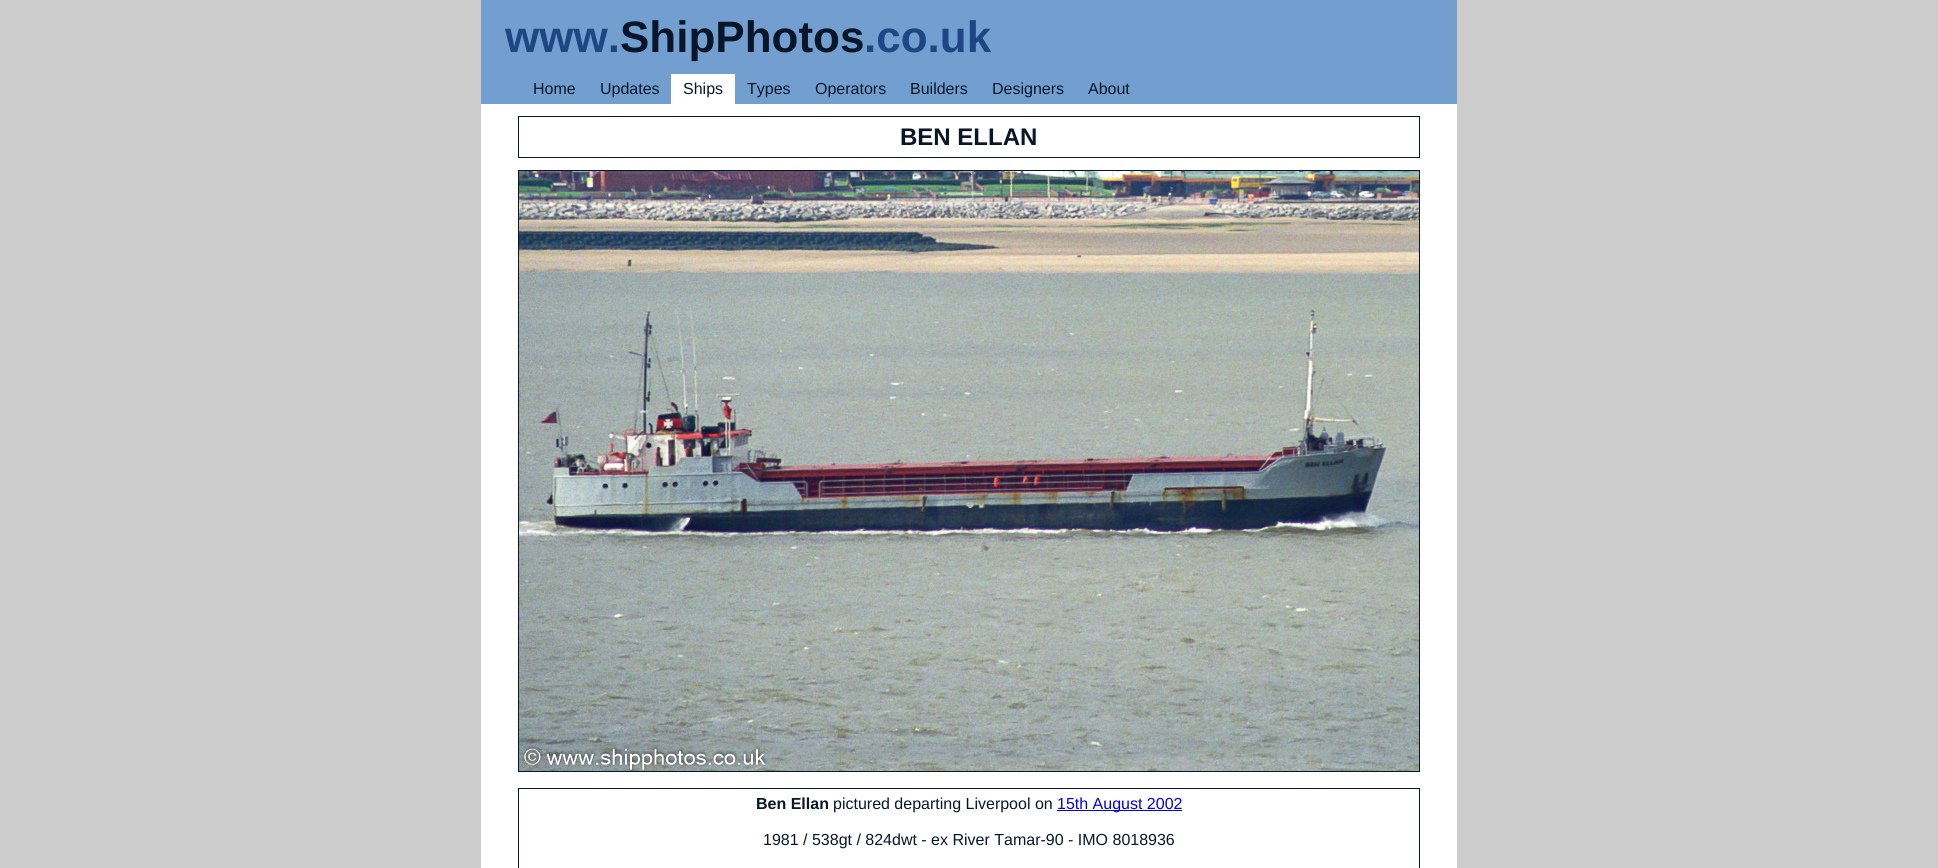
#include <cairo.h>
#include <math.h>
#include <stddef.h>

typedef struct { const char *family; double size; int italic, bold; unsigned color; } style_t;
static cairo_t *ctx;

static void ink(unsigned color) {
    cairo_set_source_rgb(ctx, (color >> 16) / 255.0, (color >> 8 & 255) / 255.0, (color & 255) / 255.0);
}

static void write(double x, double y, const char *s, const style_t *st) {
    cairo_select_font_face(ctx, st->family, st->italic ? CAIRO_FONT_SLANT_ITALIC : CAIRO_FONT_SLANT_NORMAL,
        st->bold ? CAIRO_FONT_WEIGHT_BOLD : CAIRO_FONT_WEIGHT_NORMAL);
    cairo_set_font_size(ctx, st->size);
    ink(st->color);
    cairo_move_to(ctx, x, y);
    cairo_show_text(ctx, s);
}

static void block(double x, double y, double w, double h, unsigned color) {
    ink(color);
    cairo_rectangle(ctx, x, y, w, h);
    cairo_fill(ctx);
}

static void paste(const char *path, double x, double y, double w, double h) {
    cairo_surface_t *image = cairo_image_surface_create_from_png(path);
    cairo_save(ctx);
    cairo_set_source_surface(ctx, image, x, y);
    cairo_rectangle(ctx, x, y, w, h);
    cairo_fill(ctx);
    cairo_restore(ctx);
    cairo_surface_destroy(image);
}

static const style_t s1 = {"Liberation Sans", 44, 0, 1, 0x1e4682};
static const style_t s2 = {"Liberation Sans", 44, 0, 1, 0x091629};
static const style_t s3 = {"Liberation Sans", 16, 0, 0, 0x091629};
static const style_t s4 = {"Liberation Sans", 24, 0, 1, 0x091629};
static const style_t s5 = {"Liberation Sans", 16, 0, 1, 0x091629};
static const style_t s6 = {"Liberation Sans", 16, 0, 0, 0x0000ee};

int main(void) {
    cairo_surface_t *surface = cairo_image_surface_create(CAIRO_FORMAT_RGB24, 1938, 868);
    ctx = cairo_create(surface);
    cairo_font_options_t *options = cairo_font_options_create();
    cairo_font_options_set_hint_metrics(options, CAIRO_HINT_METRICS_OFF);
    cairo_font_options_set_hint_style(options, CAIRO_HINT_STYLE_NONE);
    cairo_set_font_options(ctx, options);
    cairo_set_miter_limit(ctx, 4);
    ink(0xcccccc);
    cairo_paint(ctx);
    block(481, 0, 976, 104, 0x729fcf);
    write(505, 52, "www.", &s1);
    write(620, 52, "ShipPhotos", &s2);
    write(864, 52, ".co.uk", &s1);
    write(533, 94, "Home", &s3);
    write(600, 94, "Updates", &s3);
    block(671, 74, 64, 30, 0xffffff);
    write(683, 94, "Ships", &s3);
    write(747, 94, "Types", &s3);
    write(815, 94, "Operators", &s3);
    write(910, 94, "Builders", &s3);
    write(992, 94, "Designers", &s3);
    write(1088, 94, "About", &s3);
    block(481, 104, 976, 764, 0xffffff);
    cairo_rectangle(ctx, 518.5, 116.5, 901, 41);
    ink(0x091629);
    cairo_set_line_width(ctx, 1);
    cairo_stroke(ctx);
    write(900, 145, "BEN ELLAN", &s4);
    cairo_rectangle(ctx, 518.5, 170.5, 901, 601);
    cairo_stroke(ctx);
    paste("pic1.png", 519, 171, 900, 600);
    cairo_rectangle(ctx, 518.5, 788.5, 901, 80);
    cairo_stroke(ctx);
    write(756, 809, "Ben Ellan", &s5);
    write(833, 809, "pictured departing Liverpool on", &s3);
    block(1057, 810, 125, 1, 0x0000ee);
    write(1057, 809, "15th August 2002", &s6);
    write(763, 845, "1981 / 538gt / 824dwt - ex River Tamar-90 - IMO 8018936", &s3);
    cairo_surface_write_to_png(surface, "screenshot.png");
    cairo_font_options_destroy(options);
    cairo_destroy(ctx);
    cairo_surface_destroy(surface);
    return 0;
}
